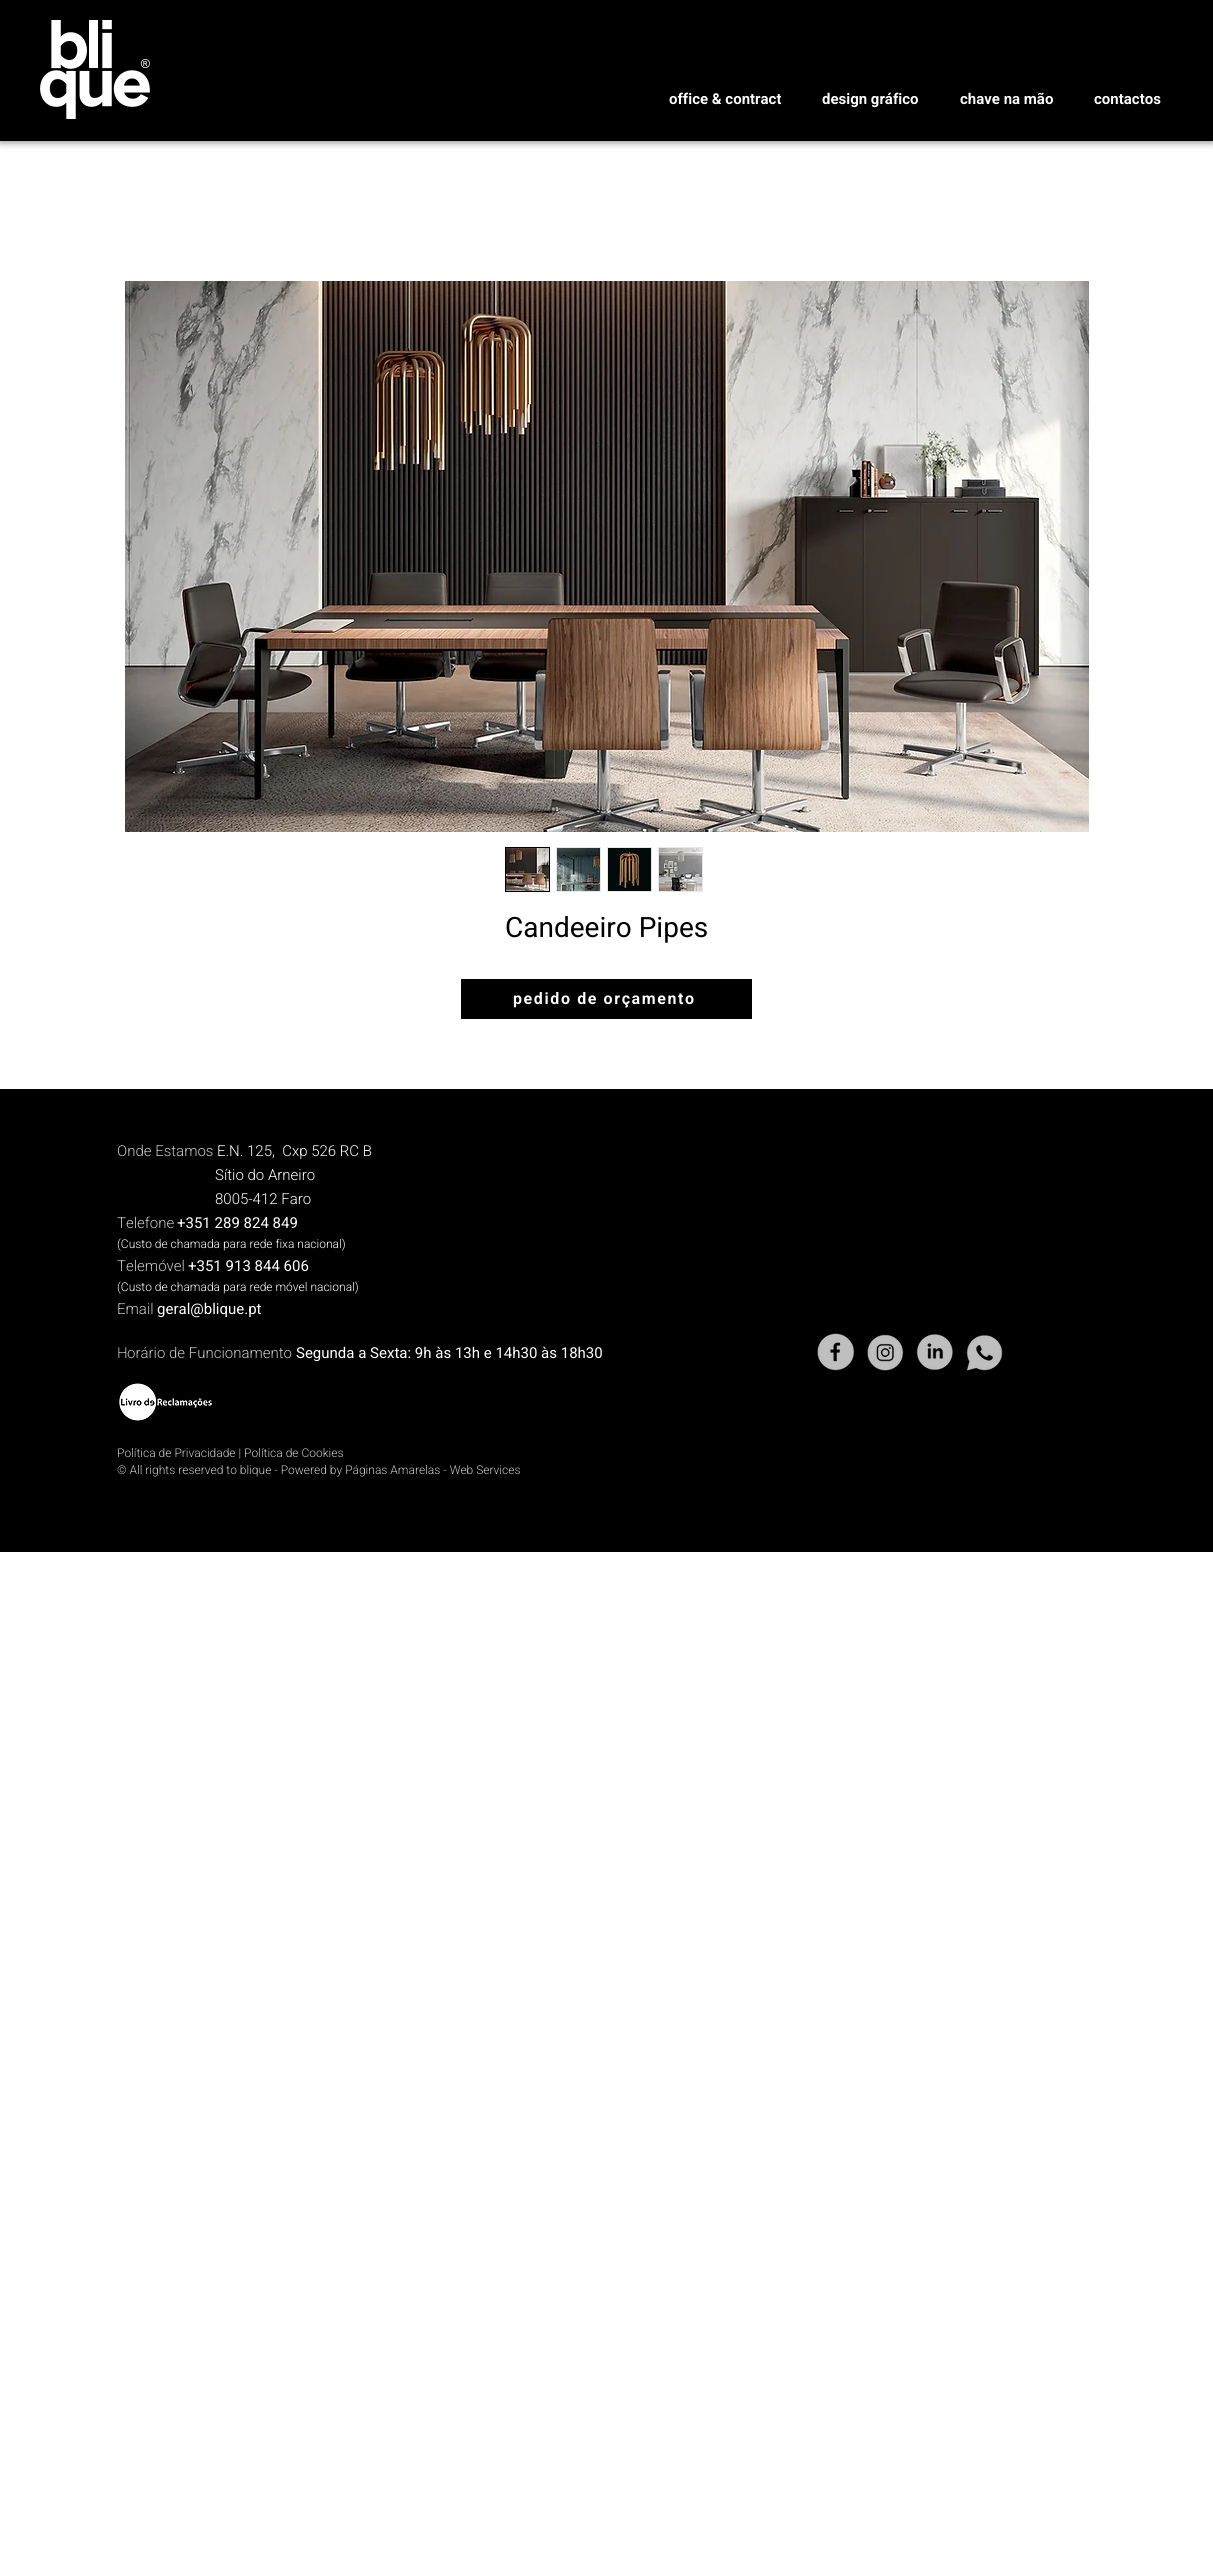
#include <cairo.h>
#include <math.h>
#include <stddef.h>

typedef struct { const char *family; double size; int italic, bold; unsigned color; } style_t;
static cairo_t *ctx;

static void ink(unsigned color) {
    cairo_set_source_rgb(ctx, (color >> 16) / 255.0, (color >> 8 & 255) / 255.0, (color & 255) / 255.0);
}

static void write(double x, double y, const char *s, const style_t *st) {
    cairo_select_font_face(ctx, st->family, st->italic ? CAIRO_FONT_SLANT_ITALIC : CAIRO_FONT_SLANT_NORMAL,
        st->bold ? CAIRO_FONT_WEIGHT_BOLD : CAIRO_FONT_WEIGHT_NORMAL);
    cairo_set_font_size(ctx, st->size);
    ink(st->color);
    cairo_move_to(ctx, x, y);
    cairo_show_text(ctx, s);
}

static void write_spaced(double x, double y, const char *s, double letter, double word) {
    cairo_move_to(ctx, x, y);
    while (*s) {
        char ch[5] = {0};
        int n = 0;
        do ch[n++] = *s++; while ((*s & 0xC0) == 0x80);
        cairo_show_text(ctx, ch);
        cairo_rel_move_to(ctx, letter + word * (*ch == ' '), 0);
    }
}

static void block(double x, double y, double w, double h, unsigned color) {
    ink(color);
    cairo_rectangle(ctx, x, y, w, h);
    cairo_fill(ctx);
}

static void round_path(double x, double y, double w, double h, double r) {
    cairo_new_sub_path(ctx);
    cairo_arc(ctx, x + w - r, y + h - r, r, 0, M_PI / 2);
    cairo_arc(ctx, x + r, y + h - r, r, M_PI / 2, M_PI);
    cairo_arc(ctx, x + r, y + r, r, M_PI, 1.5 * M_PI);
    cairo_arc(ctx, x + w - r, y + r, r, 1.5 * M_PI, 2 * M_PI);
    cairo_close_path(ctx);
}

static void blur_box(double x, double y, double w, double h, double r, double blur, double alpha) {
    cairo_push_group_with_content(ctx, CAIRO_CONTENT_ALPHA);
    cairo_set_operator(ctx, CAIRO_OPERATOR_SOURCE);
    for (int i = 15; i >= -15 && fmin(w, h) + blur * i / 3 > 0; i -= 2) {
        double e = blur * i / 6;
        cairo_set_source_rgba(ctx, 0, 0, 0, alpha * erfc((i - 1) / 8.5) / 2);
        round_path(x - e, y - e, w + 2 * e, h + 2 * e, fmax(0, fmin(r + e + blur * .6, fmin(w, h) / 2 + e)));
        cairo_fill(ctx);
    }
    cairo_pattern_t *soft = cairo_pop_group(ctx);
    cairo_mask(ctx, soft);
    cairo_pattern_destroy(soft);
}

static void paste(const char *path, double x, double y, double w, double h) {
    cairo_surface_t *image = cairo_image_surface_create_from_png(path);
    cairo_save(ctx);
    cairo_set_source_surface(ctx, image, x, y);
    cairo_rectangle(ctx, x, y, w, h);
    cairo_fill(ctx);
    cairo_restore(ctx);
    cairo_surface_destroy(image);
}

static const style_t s1 = {"Heebo SemiBold", 15, 0, 0, 0xffffff};
static const style_t s2 = {"Heebo", 28, 0, 0, 0x000000};
static const style_t s3 = {"Heebo Light", 15, 0, 0, 0xc7c7c7};
static const style_t s4 = {"Heebo Light", 15, 0, 0, 0xffffff};
static const style_t s5 = {"Heebo", 15, 0, 0, 0xffffff};
static const style_t s6 = {"Heebo Light", 12, 0, 0, 0xffffff};
static const style_t s7 = {"Heebo Light", 15, 0, 0, 0xb8b8b8};
static const style_t s8 = {"Heebo Light", 12, 0, 0, 0xc7c7c7};

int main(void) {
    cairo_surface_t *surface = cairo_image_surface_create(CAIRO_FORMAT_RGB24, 1213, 2560);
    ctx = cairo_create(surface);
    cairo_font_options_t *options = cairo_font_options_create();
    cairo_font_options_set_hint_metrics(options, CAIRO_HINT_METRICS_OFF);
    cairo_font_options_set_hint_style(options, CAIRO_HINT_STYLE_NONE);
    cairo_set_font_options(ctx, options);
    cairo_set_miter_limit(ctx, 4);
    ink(0xffffff);
    cairo_paint(ctx);
    ink(0x000000);
    blur_box(0, 1, 1213, 141, 0, 4, 0.5);
    block(0, 0, 1213, 141, 0x000000);
    paste("pic1.png", 40, 20, 110, 99);
    write(669, 104, "office & contract", &s1);
    write(822, 104, "design gráfico", &s1);
    write(960, 104, "chave na mão", &s1);
    write(1094, 104, "contactos", &s1);
    paste("pic2.png", 125, 281, 964, 551);
    cairo_rectangle(ctx, 505.5, 847.5, 44, 44);
    ink(0x000000);
    cairo_set_line_width(ctx, 1);
    cairo_stroke(ctx);
    paste("pic3.png", 506, 848, 43, 43);
    block(556, 847, 45, 45, 0xe8e6e6);
    paste("pic4.png", 557, 848, 43, 43);
    block(607, 847, 45, 45, 0xe8e6e6);
    paste("pic5.png", 608, 848, 43, 43);
    block(658, 847, 45, 45, 0xe8e6e6);
    paste("pic6.png", 659, 848, 43, 43);
    write(505, 937, "Candeeiro Pipes", &s2);
    block(461, 979, 291, 40, 0x000000);
    cairo_select_font_face(ctx, "Heebo SemiBold", CAIRO_FONT_SLANT_NORMAL, CAIRO_FONT_WEIGHT_NORMAL);
    cairo_set_font_size(ctx, 16);
    ink(0xffffff);
    write_spaced(513, 1004, "pedido de orçamento", 1.6, 0);
    block(0, 1089, 1213, 463, 0x000000);
    write(117, 1156, "Onde Estamos", &s3);
    write(217, 1156, "E.N. 125,  Cxp 526 RC B", &s4);
    write(215, 1180, "Sítio do Arneiro", &s4);
    write(215, 1204, "8005-412 Faro", &s4);
    write(117, 1228, "Telefone", &s3);
    write(177, 1228, "+351 289 824 849", &s5);
    write(117, 1248, "(Custo de chamada para rede fixa nacional)", &s6);
    write(117, 1271, "Telemóvel", &s3);
    write(188, 1271, "+351 913 844 606", &s5);
    write(117, 1291, "(Custo de chamada para rede móvel nacional)", &s6);
    write(117, 1314, "Email", &s3);
    write(157, 1314, "geral@blique.pt", &s5);
    write(117, 1358, "H", &s7);
    write(127, 1358, "orário de Funcionamento", &s3);
    write(296, 1358, "Segunda a Sexta: 9h às 13h e 14h30 às 18h30", &s5);
    paste("pic7.png", 119, 1383, 93, 38);
    write(117, 1457, "Política de Privacidade | Política de Cookies", &s8);
    write(117, 1474, "© All rights reserved to blique - Powered by Páginas Amarelas - Web Services", &s8);
    paste("pic8.png", 817, 1333, 38, 38);
    paste("pic9.png", 867, 1334, 37, 37);
    paste("pic10.png", 916, 1334, 37, 36);
    paste("pic11.png", 966, 1335, 37, 36);
    cairo_surface_write_to_png(surface, "screenshot.png");
    cairo_font_options_destroy(options);
    cairo_destroy(ctx);
    cairo_surface_destroy(surface);
    return 0;
}
